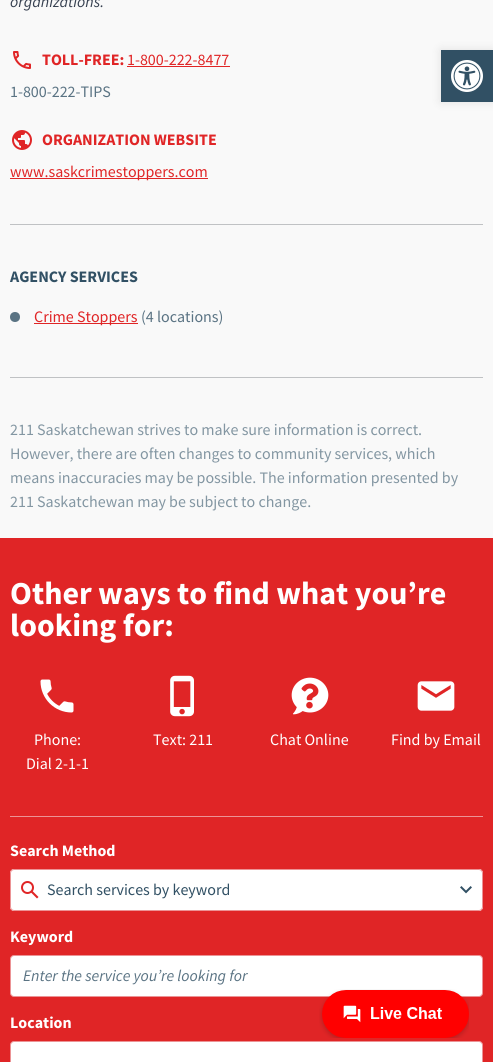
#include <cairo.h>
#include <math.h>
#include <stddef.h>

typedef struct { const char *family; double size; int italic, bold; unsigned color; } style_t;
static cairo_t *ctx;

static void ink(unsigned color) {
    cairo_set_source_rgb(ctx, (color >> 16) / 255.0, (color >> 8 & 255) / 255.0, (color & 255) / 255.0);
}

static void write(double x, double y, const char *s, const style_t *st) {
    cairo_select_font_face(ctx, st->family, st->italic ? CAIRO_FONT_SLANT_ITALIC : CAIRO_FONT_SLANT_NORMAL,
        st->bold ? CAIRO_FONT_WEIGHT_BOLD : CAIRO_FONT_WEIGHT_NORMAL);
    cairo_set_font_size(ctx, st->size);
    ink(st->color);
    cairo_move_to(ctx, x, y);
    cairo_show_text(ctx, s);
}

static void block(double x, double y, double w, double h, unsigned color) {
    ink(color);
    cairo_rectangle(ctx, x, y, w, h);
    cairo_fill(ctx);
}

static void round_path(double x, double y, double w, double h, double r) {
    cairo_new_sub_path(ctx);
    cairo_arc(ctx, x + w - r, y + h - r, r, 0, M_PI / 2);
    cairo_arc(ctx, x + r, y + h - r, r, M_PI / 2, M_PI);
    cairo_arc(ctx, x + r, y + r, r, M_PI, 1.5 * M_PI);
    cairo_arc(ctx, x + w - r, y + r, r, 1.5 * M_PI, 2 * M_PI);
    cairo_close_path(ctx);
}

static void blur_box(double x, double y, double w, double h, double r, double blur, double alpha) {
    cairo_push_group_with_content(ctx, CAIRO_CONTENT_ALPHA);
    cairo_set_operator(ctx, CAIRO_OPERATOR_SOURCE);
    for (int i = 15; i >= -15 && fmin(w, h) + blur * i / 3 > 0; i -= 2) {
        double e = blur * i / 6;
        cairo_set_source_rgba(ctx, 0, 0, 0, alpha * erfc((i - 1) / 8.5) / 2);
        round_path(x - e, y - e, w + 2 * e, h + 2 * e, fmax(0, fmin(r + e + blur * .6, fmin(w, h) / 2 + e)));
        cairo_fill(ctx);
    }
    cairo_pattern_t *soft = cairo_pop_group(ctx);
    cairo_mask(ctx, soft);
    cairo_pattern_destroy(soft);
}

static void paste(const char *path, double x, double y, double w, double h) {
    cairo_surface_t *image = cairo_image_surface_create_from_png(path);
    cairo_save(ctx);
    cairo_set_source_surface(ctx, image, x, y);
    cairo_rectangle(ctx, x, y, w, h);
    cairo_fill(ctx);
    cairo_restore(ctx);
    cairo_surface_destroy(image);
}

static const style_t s1 = {"Source Sans Pro", 16, 1, 0, 0x374151};
static const style_t s2 = {"Source Sans Pro", 16, 0, 1, 0xe02526};
static const style_t s3 = {"Source Sans Pro", 16, 0, 0, 0xe02526};
static const style_t s4 = {"Source Sans Pro", 16, 0, 0, 0x5a7383};
static const style_t s5 = {"Source Sans Pro", 16, 0, 1, 0x315064};
static const style_t s6 = {"Source Sans Pro", 16, 0, 0, 0x8396a2};
static const style_t s7 = {"Source Sans Pro", 32, 0, 1, 0xffffff};
static const style_t s8 = {"Source Sans Pro", 16, 0, 0, 0xffffff};
static const style_t s9 = {"Source Sans Pro", 16, 0, 1, 0xffffff};
static const style_t s10 = {"Source Sans Pro", 16, 0, 0, 0x315064};
static const style_t s11 = {"Source Sans Pro", 16, 1, 0, 0x5a7383};

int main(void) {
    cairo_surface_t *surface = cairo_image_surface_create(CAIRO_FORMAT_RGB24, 493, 1062);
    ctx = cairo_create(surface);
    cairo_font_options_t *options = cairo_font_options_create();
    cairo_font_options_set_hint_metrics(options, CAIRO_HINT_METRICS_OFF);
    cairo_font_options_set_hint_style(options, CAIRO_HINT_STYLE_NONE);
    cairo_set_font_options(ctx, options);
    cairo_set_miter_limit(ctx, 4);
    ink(0xf9f9f9);
    cairo_paint(ctx);
    write(10, 7, "organizations.", &s1);
    paste("pic1.png", 13, 51, 18, 18);
    write(42, 65, "TOLL-FREE:", &s2);
    write(127, 65, "1-800-222-8477", &s3);
    block(127, 66, 103, 1, 0xe02526);
    write(10, 97, "1-800-222-TIPS", &s4);
    paste("pic2.png", 12, 130, 20, 20);
    write(42, 145, "ORGANIZATION WEBSITE", &s2);
    block(10, 178, 198, 1, 0xe02526);
    write(10, 177, "www.saskcrimestoppers.com", &s3);
    block(10, 224, 473, 1, 0xc0c2c4);
    write(10, 282, "AGENCY SERVICES", &s5);
    ink(0x5a7383);
    cairo_new_path(ctx);
    cairo_arc(ctx, 15, 317, 5, 0, 2 * M_PI);
    cairo_fill(ctx);
    block(34, 323, 104, 1, 0xe02526);
    write(34, 322, "Crime Stoppers", &s3);
    write(141, 322, "(4 locations)", &s4);
    block(10, 377, 473, 1, 0xc0c2c4);
    write(10, 435, "211 Saskatchewan strives to make sure information is correct.", &s6);
    write(10, 459, "However, there are often changes to community services, which", &s6);
    write(10, 483, "means inaccuracies may be possible. The information presented by", &s6);
    write(10, 507, "211 Saskatchewan may be subject to change.", &s6);
    block(0, 538, 493, 524, 0xe02526);
    block(10, 816, 473, 1, 0xec9395);
    write(10, 604, "Other ways to find what you’re", &s7);
    write(10, 636, "looking for:", &s7);
    paste("pic3.png", 40, 679, 34, 34);
    write(34, 745, "Phone:", &s8);
    write(26, 769, "Dial 2-1-1", &s8);
    paste("pic4.png", 170, 675, 24, 42);
    write(153, 745, "Text: 211", &s8);
    paste("pic5.png", 291, 677, 38, 38);
    write(270, 745, "Chat Online", &s8);
    paste("pic6.png", 417, 681, 38, 30);
    write(391, 745, "Find by Email", &s8);
    write(10, 856, "Search Method", &s9);
    round_path(10, 869, 473, 42, 4);
    cairo_fill(ctx);
    paste("pic8.png", 460, 886, 12, 8);
    round_path(10.5, 869.5, 472, 41, 3.5);
    ink(0xec9395);
    cairo_set_line_width(ctx, 1);
    cairo_stroke(ctx);
    paste("pic7.png", 21, 881, 18, 18);
    write(47, 895, "Search services by keyword", &s10);
    write(10, 942, "Keyword", &s9);
    round_path(10.5, 955.5, 472, 41, 3.5);
    cairo_fill_preserve(ctx);
    ink(0xec9395);
    cairo_stroke(ctx);
    write(23, 981, "Enter the service you’re looking for", &s11);
    write(10, 1028, "Location", &s9);
    round_path(10.5, 1041.5, 472, 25, 3.5);
    cairo_fill_preserve(ctx);
    ink(0xec9395);
    cairo_stroke(ctx);
    ink(0x000000);
    blur_box(441, 50, 52, 52, 0, 5, 0.1);
    block(441, 50, 52, 52, 0x315064);
    paste("pic9.png", 451, 60, 32, 32);
    paste("pic10.png", 319, 989, 150, 49);
    cairo_surface_write_to_png(surface, "screenshot.png");
    cairo_font_options_destroy(options);
    cairo_destroy(ctx);
    cairo_surface_destroy(surface);
    return 0;
}
